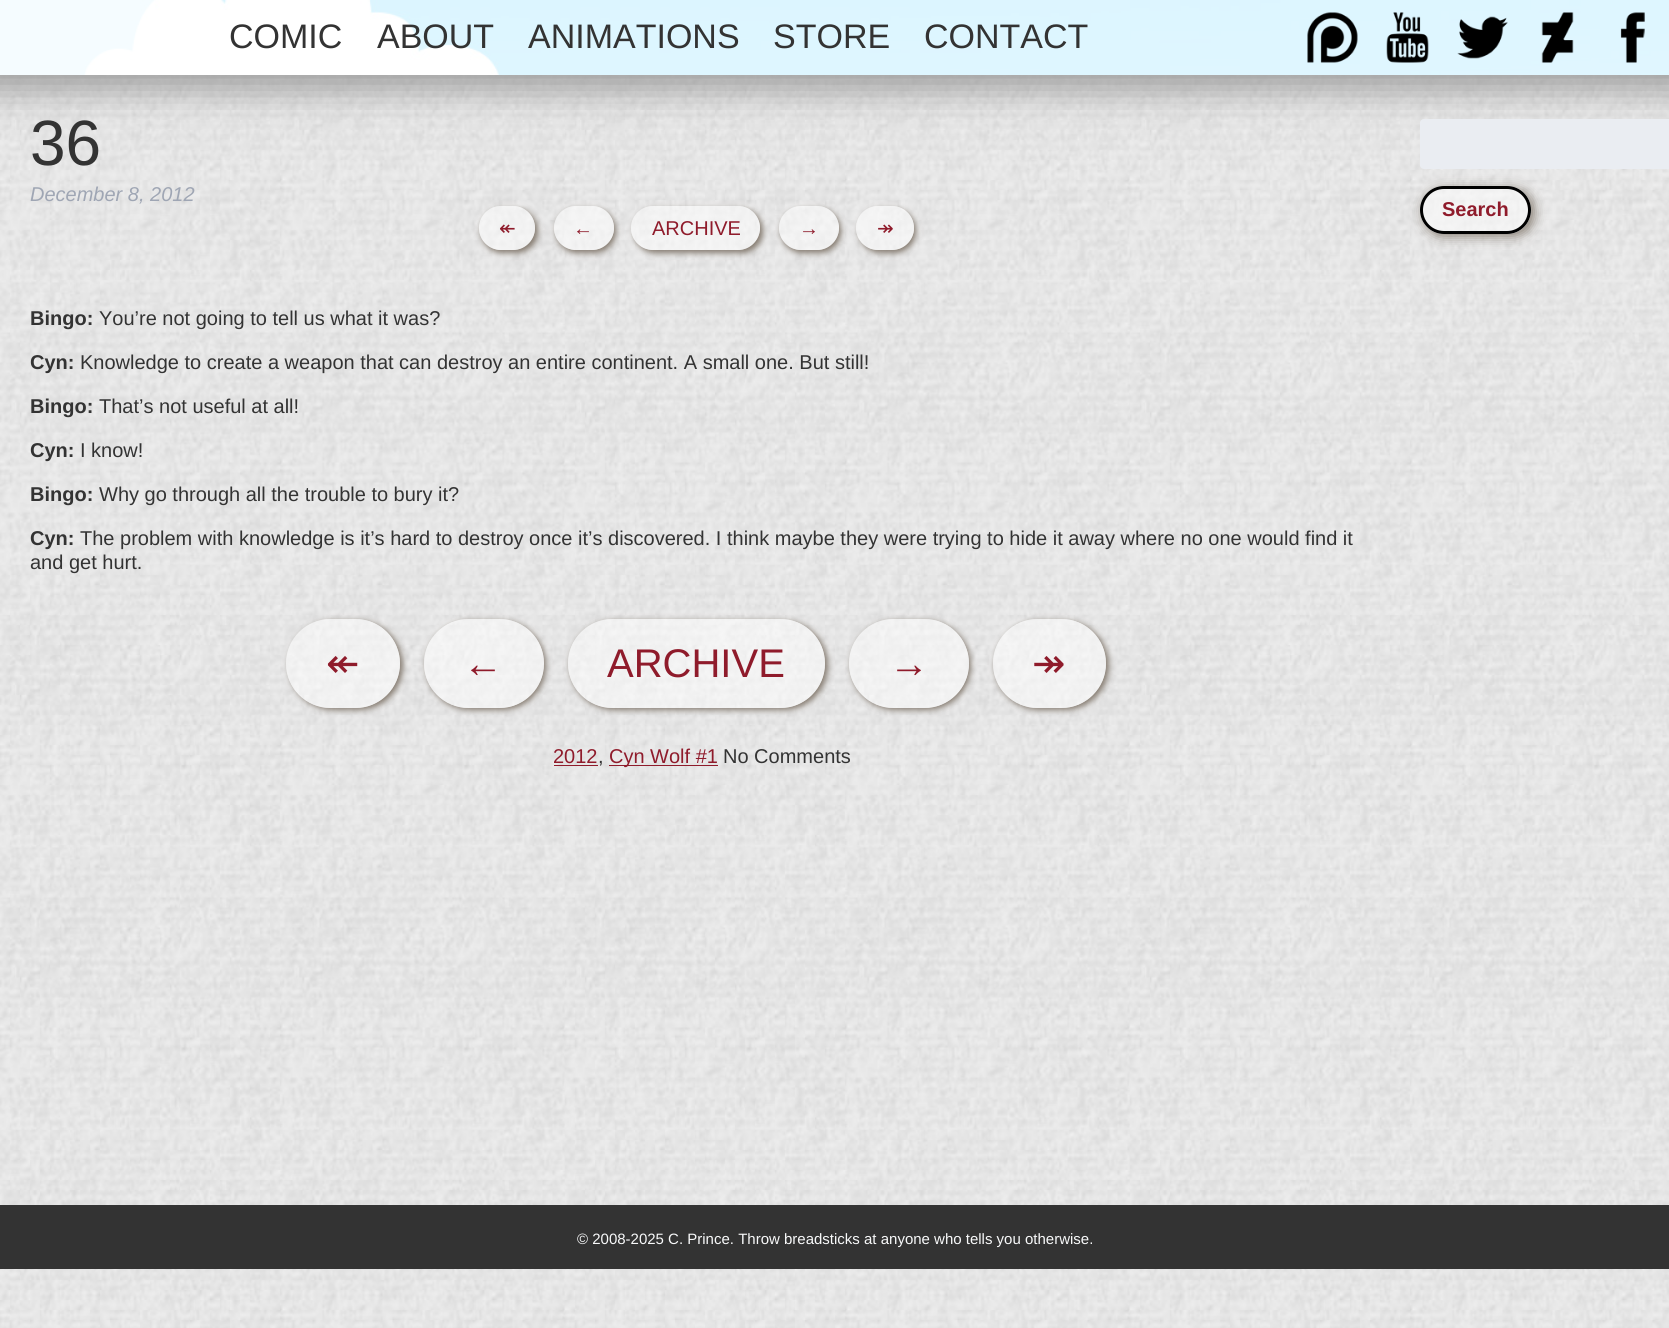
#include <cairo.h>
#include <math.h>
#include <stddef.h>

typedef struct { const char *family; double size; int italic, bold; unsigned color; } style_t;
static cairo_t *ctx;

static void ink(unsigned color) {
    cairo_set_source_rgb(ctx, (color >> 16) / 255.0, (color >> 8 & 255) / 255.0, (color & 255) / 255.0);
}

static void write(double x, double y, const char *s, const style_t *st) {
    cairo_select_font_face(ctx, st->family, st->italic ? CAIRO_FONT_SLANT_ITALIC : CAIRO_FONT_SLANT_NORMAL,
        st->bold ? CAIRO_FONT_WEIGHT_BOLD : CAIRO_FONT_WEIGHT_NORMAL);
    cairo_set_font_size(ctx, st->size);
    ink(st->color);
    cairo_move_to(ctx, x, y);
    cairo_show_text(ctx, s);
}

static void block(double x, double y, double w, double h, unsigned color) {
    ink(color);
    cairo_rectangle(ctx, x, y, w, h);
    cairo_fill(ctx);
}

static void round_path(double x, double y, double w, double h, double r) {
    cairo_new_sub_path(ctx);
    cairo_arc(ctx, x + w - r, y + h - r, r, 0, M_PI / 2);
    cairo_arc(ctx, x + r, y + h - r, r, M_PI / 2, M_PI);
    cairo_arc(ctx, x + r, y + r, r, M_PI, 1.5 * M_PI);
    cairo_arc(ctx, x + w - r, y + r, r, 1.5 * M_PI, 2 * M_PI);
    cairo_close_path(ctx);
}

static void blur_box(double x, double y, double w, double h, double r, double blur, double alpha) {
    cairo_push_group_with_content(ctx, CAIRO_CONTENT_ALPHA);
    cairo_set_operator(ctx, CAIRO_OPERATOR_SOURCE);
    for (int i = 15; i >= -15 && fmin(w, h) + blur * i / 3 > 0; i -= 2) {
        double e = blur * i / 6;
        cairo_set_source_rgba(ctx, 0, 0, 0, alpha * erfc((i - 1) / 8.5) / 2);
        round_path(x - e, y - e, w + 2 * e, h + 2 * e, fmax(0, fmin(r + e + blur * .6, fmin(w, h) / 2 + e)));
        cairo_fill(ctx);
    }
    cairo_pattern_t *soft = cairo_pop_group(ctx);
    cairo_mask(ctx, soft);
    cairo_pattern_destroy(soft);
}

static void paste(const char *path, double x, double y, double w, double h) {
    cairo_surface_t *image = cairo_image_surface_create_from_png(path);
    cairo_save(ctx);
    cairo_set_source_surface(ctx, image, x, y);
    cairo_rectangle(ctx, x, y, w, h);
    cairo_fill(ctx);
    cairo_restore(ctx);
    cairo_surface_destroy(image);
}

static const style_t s1 = {"Liberation Sans", 34, 0, 0, 0x333333};
static const style_t s2 = {"Liberation Sans", 64, 0, 0, 0x333333};
static const style_t s3 = {"Liberation Sans", 20, 1, 0, 0x9fa6b4};
static const style_t s4 = {"DejaVu Sans", 20, 0, 0, 0x8f1b2b};
static const style_t s5 = {"Liberation Sans", 20, 0, 0, 0x8f1b2b};
static const style_t s6 = {"Liberation Sans", 20, 0, 1, 0x333333};
static const style_t s7 = {"Liberation Sans", 20, 0, 0, 0x333333};
static const style_t s8 = {"DejaVu Sans", 40, 0, 0, 0x8f1b2b};
static const style_t s9 = {"Liberation Sans", 40, 0, 0, 0x8f1b2b};
static const style_t s10 = {"Liberation Sans", 20, 0, 1, 0x8f1b2b};
static const style_t s11 = {"Liberation Sans", 15, 0, 0, 0xf8f9fa};

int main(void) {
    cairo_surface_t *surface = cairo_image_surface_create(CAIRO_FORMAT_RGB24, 1669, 1328);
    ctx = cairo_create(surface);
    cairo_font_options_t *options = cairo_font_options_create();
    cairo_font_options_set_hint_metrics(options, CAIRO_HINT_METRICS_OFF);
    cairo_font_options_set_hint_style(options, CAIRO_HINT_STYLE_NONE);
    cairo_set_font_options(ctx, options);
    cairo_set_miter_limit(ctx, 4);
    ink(0xffffff);
    cairo_paint(ctx);
    paste("pic1.png", 0, 75, 1669, 1253);
    ink(0x999999);
    blur_box(-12, -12, 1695, 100, 0, 19, 1);
    paste("pic2.png", 0, 0, 1669, 75);
    cairo_set_source_rgba(ctx, 1, 1, 1, 0.7);
    cairo_rectangle(ctx, 0, 0, 155, 75);
    cairo_fill(ctx);
    write(229, 48, "COMIC", &s1);
    write(377, 48, "ABOUT", &s1);
    write(528, 48, "ANIMATIONS", &s1);
    write(773, 48, "STORE", &s1);
    write(924, 48, "CONTACT", &s1);
    paste("pic3.png", 1307, 12, 51, 51);
    paste("pic4.png", 1386, 12, 43, 51);
    paste("pic5.png", 1457, 16, 51, 43);
    paste("pic6.png", 1541, 12, 33, 51);
    paste("pic7.png", 1620, 12, 25, 51);
    write(30, 165, "36", &s2);
    write(30, 201, "December 8, 2012", &s3);
    cairo_save(ctx);
    cairo_set_fill_rule(ctx, CAIRO_FILL_RULE_EVEN_ODD);
    cairo_new_path(ctx);
    cairo_move_to(ctx, 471, 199);
    cairo_line_to(ctx, 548, 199);
    cairo_line_to(ctx, 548, 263);
    cairo_line_to(ctx, 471, 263);
    cairo_close_path(ctx);
    cairo_move_to(ctx, 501, 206);
    cairo_line_to(ctx, 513, 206);
    cairo_curve_to(ctx, 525, 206, 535, 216, 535, 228);
    cairo_curve_to(ctx, 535, 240, 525, 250, 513, 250);
    cairo_line_to(ctx, 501, 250);
    cairo_curve_to(ctx, 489, 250, 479, 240, 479, 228);
    cairo_curve_to(ctx, 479, 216, 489, 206, 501, 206);
    cairo_close_path(ctx);
    cairo_clip(ctx);
    ink(0x857b70);
    blur_box(481, 209, 57, 44, 22, 3, 1);
    cairo_restore(ctx);
    cairo_set_source_rgba(ctx, 1, 1, 1, 0.5);
    round_path(479, 206, 56, 44, 22);
    cairo_fill(ctx);
    write(499, 235, "↞", &s4);
    cairo_save(ctx);
    cairo_set_fill_rule(ctx, CAIRO_FILL_RULE_EVEN_ODD);
    cairo_new_path(ctx);
    cairo_move_to(ctx, 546, 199);
    cairo_line_to(ctx, 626, 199);
    cairo_line_to(ctx, 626, 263);
    cairo_line_to(ctx, 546, 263);
    cairo_close_path(ctx);
    cairo_move_to(ctx, 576, 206);
    cairo_line_to(ctx, 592, 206);
    cairo_curve_to(ctx, 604, 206, 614, 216, 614, 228);
    cairo_curve_to(ctx, 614, 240, 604, 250, 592, 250);
    cairo_line_to(ctx, 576, 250);
    cairo_curve_to(ctx, 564, 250, 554, 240, 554, 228);
    cairo_curve_to(ctx, 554, 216, 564, 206, 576, 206);
    cairo_close_path(ctx);
    cairo_clip(ctx);
    ink(0x857b70);
    blur_box(556, 209, 60, 44, 22, 3, 1);
    cairo_restore(ctx);
    cairo_set_source_rgba(ctx, 1, 1, 1, 0.5);
    round_path(554, 206, 60, 44, 22);
    cairo_fill(ctx);
    write(573, 235, "←", &s5);
    cairo_save(ctx);
    cairo_set_fill_rule(ctx, CAIRO_FILL_RULE_EVEN_ODD);
    cairo_new_path(ctx);
    cairo_move_to(ctx, 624, 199);
    cairo_line_to(ctx, 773, 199);
    cairo_line_to(ctx, 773, 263);
    cairo_line_to(ctx, 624, 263);
    cairo_close_path(ctx);
    cairo_move_to(ctx, 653, 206);
    cairo_line_to(ctx, 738, 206);
    cairo_curve_to(ctx, 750, 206, 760, 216, 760, 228);
    cairo_curve_to(ctx, 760, 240, 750, 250, 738, 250);
    cairo_line_to(ctx, 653, 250);
    cairo_curve_to(ctx, 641, 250, 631, 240, 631, 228);
    cairo_curve_to(ctx, 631, 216, 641, 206, 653, 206);
    cairo_close_path(ctx);
    cairo_clip(ctx);
    ink(0x857b70);
    blur_box(634, 209, 129, 44, 22, 3, 1);
    cairo_restore(ctx);
    cairo_set_source_rgba(ctx, 1, 1, 1, 0.5);
    round_path(631, 206, 129, 44, 22);
    cairo_fill(ctx);
    write(652, 235, "ARCHIVE", &s5);
    cairo_save(ctx);
    cairo_set_fill_rule(ctx, CAIRO_FILL_RULE_EVEN_ODD);
    cairo_new_path(ctx);
    cairo_move_to(ctx, 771, 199);
    cairo_line_to(ctx, 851, 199);
    cairo_line_to(ctx, 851, 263);
    cairo_line_to(ctx, 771, 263);
    cairo_close_path(ctx);
    cairo_move_to(ctx, 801, 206);
    cairo_line_to(ctx, 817, 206);
    cairo_curve_to(ctx, 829, 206, 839, 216, 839, 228);
    cairo_curve_to(ctx, 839, 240, 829, 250, 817, 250);
    cairo_line_to(ctx, 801, 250);
    cairo_curve_to(ctx, 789, 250, 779, 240, 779, 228);
    cairo_curve_to(ctx, 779, 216, 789, 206, 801, 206);
    cairo_close_path(ctx);
    cairo_clip(ctx);
    ink(0x857b70);
    blur_box(781, 209, 60, 44, 22, 3, 1);
    cairo_restore(ctx);
    cairo_set_source_rgba(ctx, 1, 1, 1, 0.5);
    round_path(779, 206, 60, 44, 22);
    cairo_fill(ctx);
    write(799, 235, "→", &s5);
    cairo_save(ctx);
    cairo_set_fill_rule(ctx, CAIRO_FILL_RULE_EVEN_ODD);
    cairo_new_path(ctx);
    cairo_move_to(ctx, 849, 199);
    cairo_line_to(ctx, 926, 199);
    cairo_line_to(ctx, 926, 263);
    cairo_line_to(ctx, 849, 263);
    cairo_close_path(ctx);
    cairo_move_to(ctx, 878, 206);
    cairo_line_to(ctx, 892, 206);
    cairo_curve_to(ctx, 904, 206, 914, 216, 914, 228);
    cairo_curve_to(ctx, 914, 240, 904, 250, 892, 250);
    cairo_line_to(ctx, 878, 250);
    cairo_curve_to(ctx, 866, 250, 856, 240, 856, 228);
    cairo_curve_to(ctx, 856, 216, 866, 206, 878, 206);
    cairo_close_path(ctx);
    cairo_clip(ctx);
    ink(0x857b70);
    blur_box(859, 209, 57, 44, 22, 3, 1);
    cairo_restore(ctx);
    cairo_set_source_rgba(ctx, 1, 1, 1, 0.5);
    round_path(856, 206, 58, 44, 22);
    cairo_fill(ctx);
    write(877, 235, "↠", &s4);
    write(30, 325, "Bingo:", &s6);
    write(99, 325, "You’re not going to tell us what it was?", &s7);
    write(30, 369, "Cyn:", &s6);
    write(80, 369, "Knowledge to create a weapon that can destroy an entire continent. A small one. But still!", &s7);
    write(30, 413, "Bingo:", &s6);
    write(99, 413, "That’s not useful at all!", &s7);
    write(30, 457, "Cyn:", &s6);
    write(80, 457, "I know!", &s7);
    write(30, 501, "Bingo:", &s6);
    write(99, 501, "Why go through all the trouble to bury it?", &s7);
    write(30, 545, "Cyn:", &s6);
    write(80, 545, "The problem with knowledge is it’s hard to destroy once it’s discovered. I think maybe they were trying to hide it away where no one would find it", &s7);
    write(30, 569, "and get hurt.", &s7);
    cairo_save(ctx);
    cairo_set_fill_rule(ctx, CAIRO_FILL_RULE_EVEN_ODD);
    cairo_new_path(ctx);
    cairo_move_to(ctx, 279, 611);
    cairo_line_to(ctx, 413, 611);
    cairo_line_to(ctx, 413, 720);
    cairo_line_to(ctx, 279, 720);
    cairo_close_path(ctx);
    cairo_move_to(ctx, 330.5, 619);
    cairo_line_to(ctx, 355.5, 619);
    cairo_curve_to(ctx, 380, 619, 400, 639, 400, 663.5);
    cairo_curve_to(ctx, 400, 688, 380, 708, 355.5, 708);
    cairo_line_to(ctx, 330.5, 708);
    cairo_curve_to(ctx, 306, 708, 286, 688, 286, 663.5);
    cairo_curve_to(ctx, 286, 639, 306, 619, 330.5, 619);
    cairo_close_path(ctx);
    cairo_clip(ctx);
    ink(0x857b70);
    blur_box(289, 621, 114, 89, 44.5, 3, 1);
    cairo_restore(ctx);
    cairo_set_source_rgba(ctx, 1, 1, 1, 0.5);
    round_path(286, 619, 114, 89, 44.5);
    cairo_fill(ctx);
    write(326, 677, "↞", &s8);
    cairo_save(ctx);
    cairo_set_fill_rule(ctx, CAIRO_FILL_RULE_EVEN_ODD);
    cairo_new_path(ctx);
    cairo_move_to(ctx, 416, 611);
    cairo_line_to(ctx, 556, 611);
    cairo_line_to(ctx, 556, 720);
    cairo_line_to(ctx, 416, 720);
    cairo_close_path(ctx);
    cairo_move_to(ctx, 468.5, 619);
    cairo_line_to(ctx, 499.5, 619);
    cairo_curve_to(ctx, 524, 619, 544, 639, 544, 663.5);
    cairo_curve_to(ctx, 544, 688, 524, 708, 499.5, 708);
    cairo_line_to(ctx, 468.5, 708);
    cairo_curve_to(ctx, 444, 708, 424, 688, 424, 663.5);
    cairo_curve_to(ctx, 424, 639, 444, 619, 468.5, 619);
    cairo_close_path(ctx);
    cairo_clip(ctx);
    ink(0x857b70);
    blur_box(426, 621, 120, 89, 44.5, 3, 1);
    cairo_restore(ctx);
    cairo_set_source_rgba(ctx, 1, 1, 1, 0.5);
    round_path(424, 619, 120, 89, 44.5);
    cairo_fill(ctx);
    write(463, 677, "←", &s9);
    cairo_save(ctx);
    cairo_set_fill_rule(ctx, CAIRO_FILL_RULE_EVEN_ODD);
    cairo_new_path(ctx);
    cairo_move_to(ctx, 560, 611);
    cairo_line_to(ctx, 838, 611);
    cairo_line_to(ctx, 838, 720);
    cairo_line_to(ctx, 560, 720);
    cairo_close_path(ctx);
    cairo_move_to(ctx, 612.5, 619);
    cairo_line_to(ctx, 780.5, 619);
    cairo_curve_to(ctx, 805, 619, 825, 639, 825, 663.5);
    cairo_curve_to(ctx, 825, 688, 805, 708, 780.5, 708);
    cairo_line_to(ctx, 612.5, 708);
    cairo_curve_to(ctx, 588, 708, 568, 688, 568, 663.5);
    cairo_curve_to(ctx, 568, 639, 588, 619, 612.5, 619);
    cairo_close_path(ctx);
    cairo_clip(ctx);
    ink(0x857b70);
    blur_box(570, 621, 258, 89, 44.5, 3, 1);
    cairo_restore(ctx);
    cairo_set_source_rgba(ctx, 1, 1, 1, 0.5);
    round_path(568, 619, 257, 89, 44.5);
    cairo_fill(ctx);
    write(607, 677, "ARCHIVE", &s9);
    cairo_save(ctx);
    cairo_set_fill_rule(ctx, CAIRO_FILL_RULE_EVEN_ODD);
    cairo_new_path(ctx);
    cairo_move_to(ctx, 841, 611);
    cairo_line_to(ctx, 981, 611);
    cairo_line_to(ctx, 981, 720);
    cairo_line_to(ctx, 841, 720);
    cairo_close_path(ctx);
    cairo_move_to(ctx, 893.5, 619);
    cairo_line_to(ctx, 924.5, 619);
    cairo_curve_to(ctx, 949, 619, 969, 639, 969, 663.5);
    cairo_curve_to(ctx, 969, 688, 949, 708, 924.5, 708);
    cairo_line_to(ctx, 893.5, 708);
    cairo_curve_to(ctx, 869, 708, 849, 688, 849, 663.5);
    cairo_curve_to(ctx, 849, 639, 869, 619, 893.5, 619);
    cairo_close_path(ctx);
    cairo_clip(ctx);
    ink(0x857b70);
    blur_box(851, 621, 120, 89, 44.5, 3, 1);
    cairo_restore(ctx);
    cairo_set_source_rgba(ctx, 1, 1, 1, 0.5);
    round_path(849, 619, 120, 89, 44.5);
    cairo_fill(ctx);
    write(889, 677, "→", &s9);
    cairo_save(ctx);
    cairo_set_fill_rule(ctx, CAIRO_FILL_RULE_EVEN_ODD);
    cairo_new_path(ctx);
    cairo_move_to(ctx, 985, 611);
    cairo_line_to(ctx, 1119, 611);
    cairo_line_to(ctx, 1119, 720);
    cairo_line_to(ctx, 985, 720);
    cairo_close_path(ctx);
    cairo_move_to(ctx, 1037.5, 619);
    cairo_line_to(ctx, 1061.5, 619);
    cairo_curve_to(ctx, 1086, 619, 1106, 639, 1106, 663.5);
    cairo_curve_to(ctx, 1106, 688, 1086, 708, 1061.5, 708);
    cairo_line_to(ctx, 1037.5, 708);
    cairo_curve_to(ctx, 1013, 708, 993, 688, 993, 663.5);
    cairo_curve_to(ctx, 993, 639, 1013, 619, 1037.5, 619);
    cairo_close_path(ctx);
    cairo_clip(ctx);
    ink(0x857b70);
    blur_box(995, 621, 114, 89, 44.5, 3, 1);
    cairo_restore(ctx);
    cairo_set_source_rgba(ctx, 1, 1, 1, 0.5);
    round_path(993, 619, 113, 89, 44.5);
    cairo_fill(ctx);
    write(1032, 677, "↠", &s8);
    write(553, 763, "2012", &s5);
    block(554, 765, 44, 1, 0x8f1b2b);
    write(598, 763, ",", &s7);
    block(609, 765, 109, 1, 0x8f1b2b);
    write(609, 763, "Cyn Wolf #1", &s5);
    write(723, 763, "No Comments", &s7);
    ink(0xeaedf2);
    round_path(1420, 119, 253, 50, 4);
    cairo_fill(ctx);
    cairo_save(ctx);
    cairo_set_fill_rule(ctx, CAIRO_FILL_RULE_EVEN_ODD);
    cairo_new_path(ctx);
    cairo_move_to(ctx, 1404, 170);
    cairo_line_to(ctx, 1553, 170);
    cairo_line_to(ctx, 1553, 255);
    cairo_line_to(ctx, 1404, 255);
    cairo_close_path(ctx);
    cairo_move_to(ctx, 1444, 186);
    cairo_line_to(ctx, 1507, 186);
    cairo_curve_to(ctx, 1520.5, 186, 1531, 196.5, 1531, 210);
    cairo_curve_to(ctx, 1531, 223.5, 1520.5, 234, 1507, 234);
    cairo_line_to(ctx, 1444, 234);
    cairo_curve_to(ctx, 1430.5, 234, 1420, 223.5, 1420, 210);
    cairo_curve_to(ctx, 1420, 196.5, 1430.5, 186, 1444, 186);
    cairo_close_path(ctx);
    cairo_clip(ctx);
    ink(0x857b70);
    blur_box(1423, 189, 111, 47, 23.5, 6, 1);
    cairo_restore(ctx);
    cairo_set_source_rgba(ctx, 1, 1, 1, 0.5);
    round_path(1421.5, 187.5, 108, 45, 22.5);
    cairo_fill_preserve(ctx);
    ink(0x000000);
    cairo_set_line_width(ctx, 3);
    cairo_stroke(ctx);
    write(1442, 216, "Search", &s10);
    block(0, 1205, 1669, 64, 0x333333);
    write(577, 1244, "© 2008-2025 C. Prince. Throw breadsticks at anyone who tells you otherwise.", &s11);
    cairo_surface_write_to_png(surface, "screenshot.png");
    cairo_font_options_destroy(options);
    cairo_destroy(ctx);
    cairo_surface_destroy(surface);
    return 0;
}
